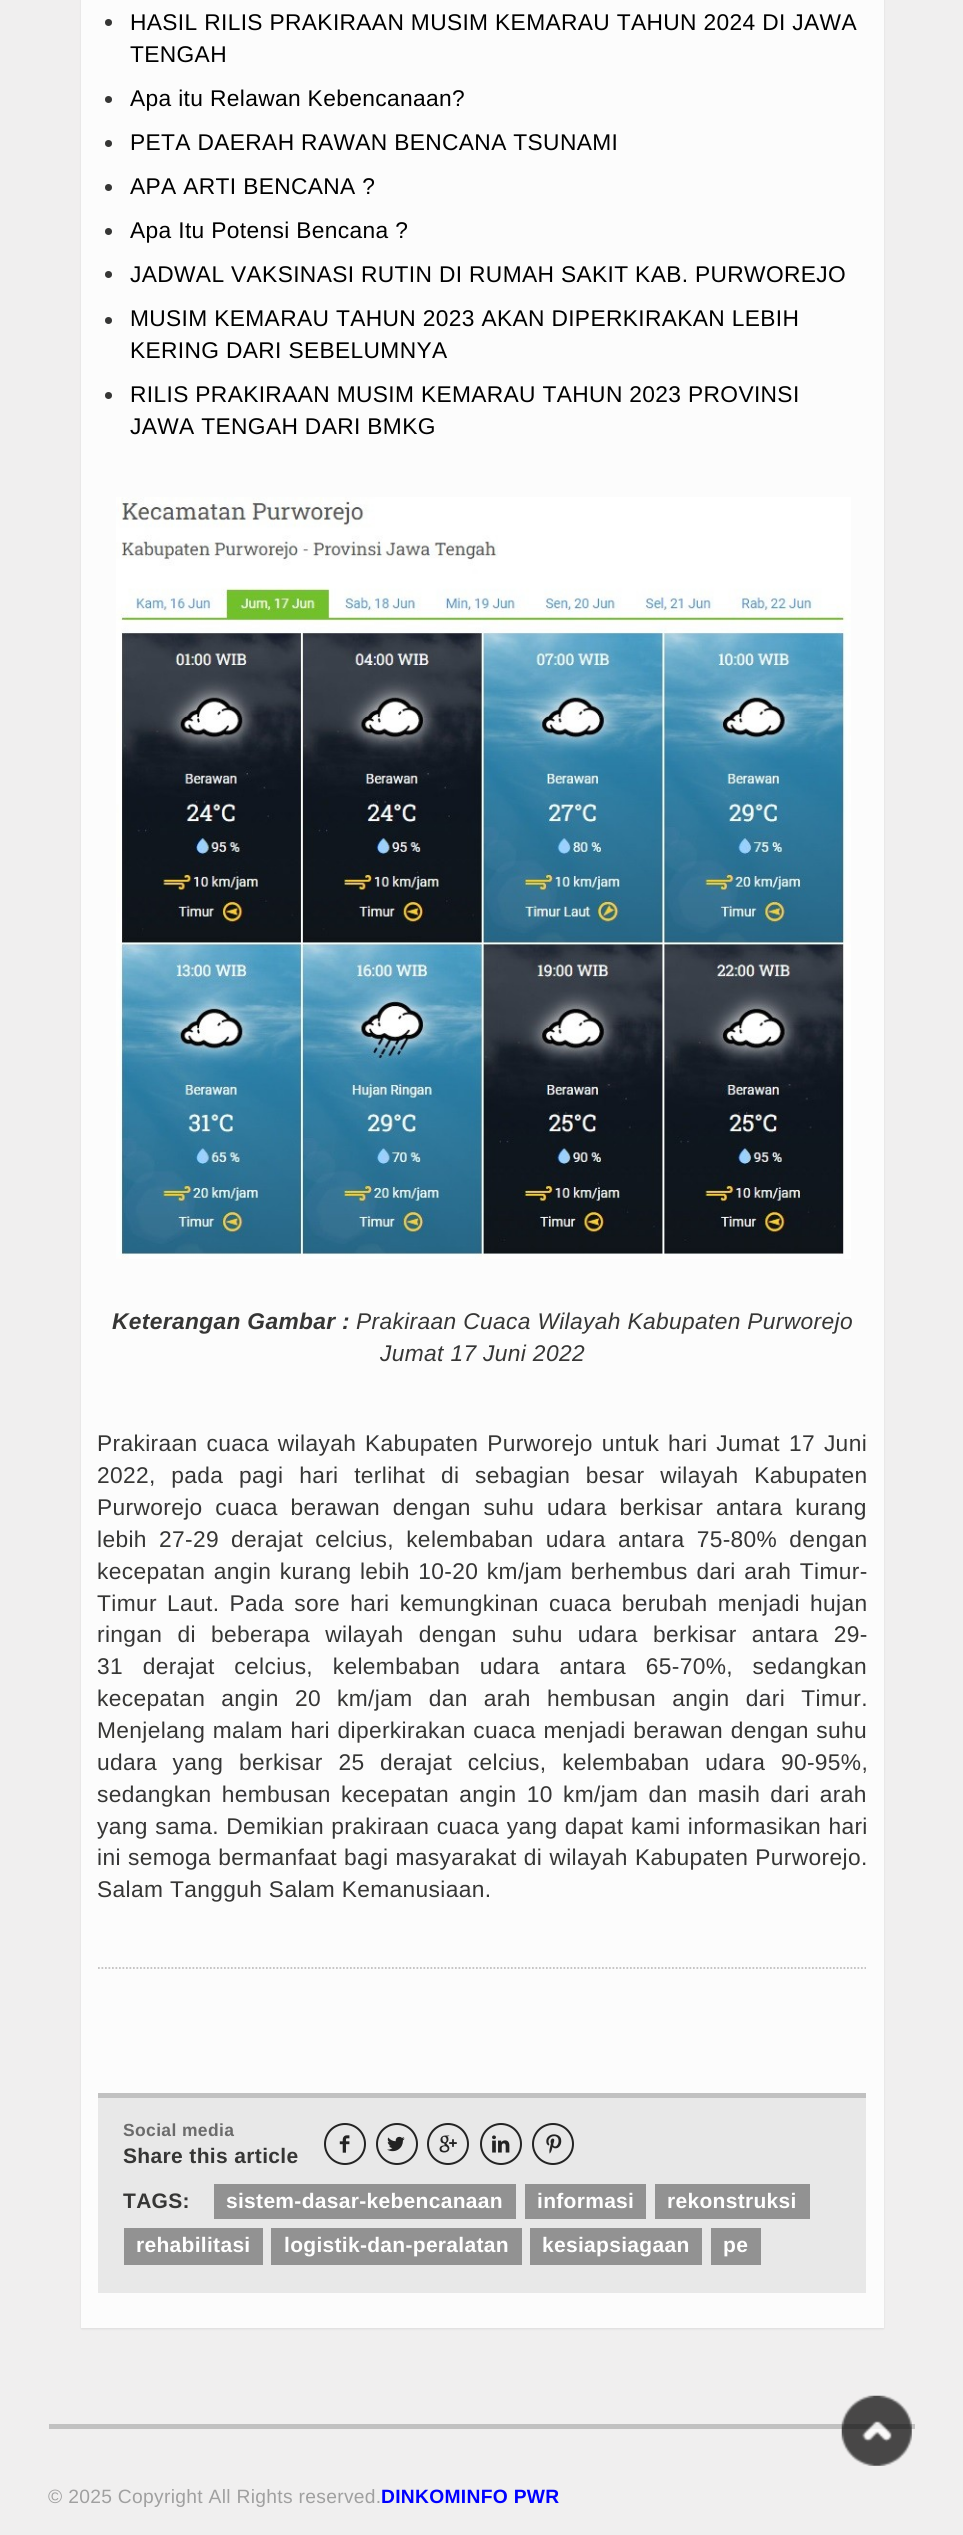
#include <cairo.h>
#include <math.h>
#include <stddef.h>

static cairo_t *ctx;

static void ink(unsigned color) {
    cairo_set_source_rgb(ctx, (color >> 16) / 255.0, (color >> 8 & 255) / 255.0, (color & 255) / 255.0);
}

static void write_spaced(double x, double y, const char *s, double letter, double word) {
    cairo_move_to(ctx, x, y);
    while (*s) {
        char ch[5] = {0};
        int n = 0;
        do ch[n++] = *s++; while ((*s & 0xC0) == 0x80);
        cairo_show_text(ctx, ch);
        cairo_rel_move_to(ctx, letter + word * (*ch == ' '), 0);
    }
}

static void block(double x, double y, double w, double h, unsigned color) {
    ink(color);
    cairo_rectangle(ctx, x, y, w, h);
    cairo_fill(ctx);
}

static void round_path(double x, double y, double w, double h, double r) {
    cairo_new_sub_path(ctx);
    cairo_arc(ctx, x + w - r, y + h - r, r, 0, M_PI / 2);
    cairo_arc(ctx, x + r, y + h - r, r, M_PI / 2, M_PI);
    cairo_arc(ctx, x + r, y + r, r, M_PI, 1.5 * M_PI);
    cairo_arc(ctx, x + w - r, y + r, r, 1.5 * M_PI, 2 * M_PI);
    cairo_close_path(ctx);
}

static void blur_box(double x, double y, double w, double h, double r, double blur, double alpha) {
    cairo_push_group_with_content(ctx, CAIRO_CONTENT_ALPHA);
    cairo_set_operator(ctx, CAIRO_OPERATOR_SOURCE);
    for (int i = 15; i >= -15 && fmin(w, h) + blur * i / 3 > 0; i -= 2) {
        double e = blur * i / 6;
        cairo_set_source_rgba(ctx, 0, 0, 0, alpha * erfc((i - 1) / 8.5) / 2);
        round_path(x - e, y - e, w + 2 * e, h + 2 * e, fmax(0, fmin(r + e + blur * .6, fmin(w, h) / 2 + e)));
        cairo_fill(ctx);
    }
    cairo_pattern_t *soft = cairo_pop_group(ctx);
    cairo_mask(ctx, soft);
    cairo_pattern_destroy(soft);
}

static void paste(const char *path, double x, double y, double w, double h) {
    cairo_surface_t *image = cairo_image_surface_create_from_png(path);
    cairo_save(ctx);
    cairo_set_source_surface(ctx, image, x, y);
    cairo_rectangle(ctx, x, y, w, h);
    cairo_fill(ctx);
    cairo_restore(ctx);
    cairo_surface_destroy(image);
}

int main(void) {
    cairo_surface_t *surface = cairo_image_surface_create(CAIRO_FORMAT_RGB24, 963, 2535);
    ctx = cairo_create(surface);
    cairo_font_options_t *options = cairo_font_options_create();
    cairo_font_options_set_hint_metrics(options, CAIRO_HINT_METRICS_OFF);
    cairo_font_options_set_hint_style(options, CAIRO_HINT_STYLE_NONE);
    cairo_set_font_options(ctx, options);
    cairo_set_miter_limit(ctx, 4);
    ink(0xf0efef);
    cairo_paint(ctx);
    ink(0x000000);
    blur_box(81, -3, 803, 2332, 0, 1, 0.08);
    block(81, 0, 803, 2328, 0xfcfcfc);
    ink(0x363635);
    cairo_arc(ctx, 108.5, 22.5, 3.5, 0, 2 * M_PI);
    cairo_fill(ctx);
    cairo_select_font_face(ctx, "Liberation Sans", CAIRO_FONT_SLANT_NORMAL, CAIRO_FONT_WEIGHT_NORMAL);
    cairo_set_font_size(ctx, 22.75);
    ink(0x000000);
    write_spaced(130, 30, "HASIL RILIS PRAKIRAAN MUSIM KEMARAU TAHUN 2024 DI JAWA", 0.35, 0);
    write_spaced(130, 62, "TENGAH", 0.35, 0);
    ink(0x363635);
    cairo_new_path(ctx);
    cairo_arc(ctx, 108.5, 99.5, 3.5, 0, 2 * M_PI);
    cairo_fill(ctx);
    ink(0x000000);
    write_spaced(130, 106, "Apa itu Relawan Kebencanaan?", 0.35, 0);
    ink(0x363635);
    cairo_new_path(ctx);
    cairo_arc(ctx, 108.5, 143.5, 3.5, 0, 2 * M_PI);
    cairo_fill(ctx);
    ink(0x000000);
    write_spaced(130, 150, "PETA DAERAH RAWAN BENCANA TSUNAMI", 0.35, 0);
    ink(0x363635);
    cairo_new_path(ctx);
    cairo_arc(ctx, 108.5, 187.5, 3.5, 0, 2 * M_PI);
    cairo_fill(ctx);
    ink(0x000000);
    write_spaced(130, 194, "APA ARTI BENCANA ?", 0.35, 0);
    ink(0x363635);
    cairo_new_path(ctx);
    cairo_arc(ctx, 108.5, 231.5, 3.5, 0, 2 * M_PI);
    cairo_fill(ctx);
    ink(0x000000);
    write_spaced(130, 238, "Apa Itu Potensi Bencana ?", 0.35, 0);
    ink(0x363635);
    cairo_new_path(ctx);
    cairo_arc(ctx, 108.5, 274.5, 3.5, 0, 2 * M_PI);
    cairo_fill(ctx);
    ink(0x000000);
    write_spaced(130, 282, "JADWAL VAKSINASI RUTIN DI RUMAH SAKIT KAB. PURWOREJO", 0.35, 0);
    ink(0x363635);
    cairo_new_path(ctx);
    cairo_arc(ctx, 108.5, 320.5, 3.5, 0, 2 * M_PI);
    cairo_fill(ctx);
    ink(0x000000);
    write_spaced(130, 326, "MUSIM KEMARAU TAHUN 2023 AKAN DIPERKIRAKAN LEBIH", 0.35, 0);
    write_spaced(130, 358, "KERING DARI SEBELUMNYA", 0.35, 0);
    ink(0x363635);
    cairo_new_path(ctx);
    cairo_arc(ctx, 108.5, 395.5, 3.5, 0, 2 * M_PI);
    cairo_fill(ctx);
    ink(0x000000);
    write_spaced(130, 402, "RILIS PRAKIRAAN MUSIM KEMARAU TAHUN 2023 PROVINSI", 0.35, 0);
    write_spaced(130, 434, "JAWA TENGAH DARI BMKG", 0.35, 0);
    paste("pic1.png", 116, 497, 735, 762);
    cairo_select_font_face(ctx, "Liberation Sans", CAIRO_FONT_SLANT_ITALIC, CAIRO_FONT_WEIGHT_BOLD);
    ink(0x363635);
    write_spaced(112, 1329, "Keterangan Gambar :", 0.35, 0);
    cairo_select_font_face(ctx, "Liberation Sans", CAIRO_FONT_SLANT_ITALIC, CAIRO_FONT_WEIGHT_NORMAL);
    write_spaced(356, 1329, "Prakiraan Cuaca Wilayah Kabupaten Purworejo", 0.35, 0);
    write_spaced(380, 1361, "Jumat 17 Juni 2022", 0.35, 0);
    cairo_select_font_face(ctx, "Liberation Sans", CAIRO_FONT_SLANT_NORMAL, CAIRO_FONT_WEIGHT_NORMAL);
    write_spaced(97, 1451, "Prakiraan cuaca wilayah Kabupaten Purworejo untuk hari Jumat 17 Juni", 0.35, 2.25);
    write_spaced(97, 1483, "2022, pada pagi hari terlihat di sebagian besar wilayah Kabupaten", 0.35, 9);
    write_spaced(97, 1515, "Purworejo cuaca berawan dengan suhu udara berkisar antara kurang", 0.35, 6);
    write_spaced(97, 1547, "lebih 27-29 derajat celcius, kelembaban udara antara 75-80% dengan", 0.35, 5.5);
    write_spaced(97, 1579, "kecepatan angin kurang lebih 10-20 km/jam berhembus dari arah Timur-", 0.35, 1.9);
    write_spaced(97, 1611, "Timur Laut. Pada sore hari kemungkinan cuaca berubah menjadi hujan", 0.35, 3.5);
    write_spaced(97, 1642, "ringan di beberapa wilayah dengan suhu udara berkisar antara 29-", 0.35, 8.5);
    write_spaced(97, 1674, "31 derajat celcius, kelembaban udara antara 65-70%, sedangkan", 0.35, 13);
    write_spaced(97, 1706, "kecepatan angin 20 km/jam dan arah hembusan angin dari Timur.", 0.35, 9.5);
    write_spaced(97, 1738, "Menjelang malam hari diperkirakan cuaca menjadi berawan dengan suhu", 0.35, 1);
    write_spaced(97, 1770, "udara yang berkisar 25 derajat celcius, kelembaban udara 90-95%,", 0.35, 9);
    write_spaced(97, 1802, "sedangkan hembusan kecepatan angin 10 km/jam dan masih dari arah", 0.35, 3.5);
    write_spaced(97, 1834, "yang sama. Demikian prakiraan cuaca yang dapat kami informasikan hari", 0.35, 0.75);
    write_spaced(97, 1865, "ini semoga bermanfaat bagi masyarakat di wilayah Kabupaten Purworejo.", 0.35, 0.5);
    write_spaced(97, 1897, "Salam Tangguh Salam Kemanusiaan.", 0.35, 0);
    cairo_new_path(ctx);
    cairo_move_to(ctx, 98, 1968);
    cairo_line_to(ctx, 866, 1968);
    ink(0xc0bfbf);
    cairo_set_line_width(ctx, 1.8);
    cairo_set_dash(ctx, (double[]){1.75, 1.75}, 2, 0);
    cairo_stroke(ctx);
    block(98, 2098, 768, 195, 0xe8e8e8);
    block(98, 2093, 768, 5, 0xc1c1c1);
    cairo_select_font_face(ctx, "Liberation Sans", CAIRO_FONT_SLANT_NORMAL, CAIRO_FONT_WEIGHT_BOLD);
    cairo_set_font_size(ctx, 17.5);
    ink(0x6b6b6b);
    write_spaced(123, 2136, "Social media", 0.35, 0);
    cairo_set_font_size(ctx, 21);
    ink(0x363635);
    write_spaced(123, 2163, "Share this article", 0.35, 0);
    cairo_new_path(ctx);
    cairo_arc(ctx, 345, 2144, 20, 0, 2 * M_PI);
    ink(0x232323);
    cairo_set_line_width(ctx, 2);
    cairo_set_dash(ctx, NULL, 0, 0);
    cairo_stroke(ctx);
    paste("pic2.png", 339, 2135, 11, 18);
    cairo_arc(ctx, 397, 2144, 20, 0, 2 * M_PI);
    cairo_stroke(ctx);
    paste("pic3.png", 387, 2136, 18, 16);
    cairo_arc(ctx, 448, 2144, 20, 0, 2 * M_PI);
    cairo_stroke(ctx);
    paste("pic4.png", 439, 2135, 18, 18);
    cairo_arc(ctx, 501, 2144, 20, 0, 2 * M_PI);
    cairo_stroke(ctx);
    paste("pic5.png", 492, 2135, 18, 18);
    cairo_arc(ctx, 553, 2144, 20, 0, 2 * M_PI);
    cairo_stroke(ctx);
    paste("pic6.png", 546, 2134, 16, 20);
    ink(0x363635);
    write_spaced(123, 2208, "TAGS:", 0.3, 0);
    block(214, 2184, 302, 35, 0x929292);
    ink(0xffffff);
    write_spaced(226, 2208, "sistem-dasar-kebencanaan", 0.3, 0);
    block(525, 2184, 121, 35, 0x929292);
    ink(0xffffff);
    write_spaced(537, 2208, "informasi", 0.3, 0);
    block(655, 2184, 155, 35, 0x929292);
    ink(0xffffff);
    write_spaced(667, 2208, "rekonstruksi", 0.3, 0);
    block(124, 2228, 139, 37, 0x929292);
    ink(0xffffff);
    write_spaced(136, 2252, "rehabilitasi", 0.3, 0);
    block(271, 2228, 251, 37, 0x929292);
    ink(0xffffff);
    write_spaced(284, 2252, "logistik-dan-peralatan", 0.3, 0);
    block(530, 2228, 172, 37, 0x929292);
    ink(0xffffff);
    write_spaced(542, 2252, "kesiapsiagaan", 0.3, 0);
    block(711, 2228, 50, 37, 0x929292);
    ink(0xffffff);
    write_spaced(723, 2252, "pe", 0.3, 0);
    block(49, 2424, 866, 5, 0xc1c1c1);
    cairo_select_font_face(ctx, "Liberation Sans", CAIRO_FONT_SLANT_NORMAL, CAIRO_FONT_WEIGHT_NORMAL);
    cairo_set_font_size(ctx, 19.25);
    ink(0xa0a0a0);
    write_spaced(48, 2503, "© 2025 Copyright All Rights reserved.", 0.3, 0);
    cairo_select_font_face(ctx, "Liberation Sans", CAIRO_FONT_SLANT_NORMAL, CAIRO_FONT_WEIGHT_BOLD);
    ink(0x0000ff);
    write_spaced(381, 2503, "DINKOMINFO PWR", 0.3, 0);
    paste("pic7.png", 841, 2395, 71, 71);
    cairo_surface_write_to_png(surface, "screenshot.png");
    cairo_font_options_destroy(options);
    cairo_destroy(ctx);
    cairo_surface_destroy(surface);
    return 0;
}
